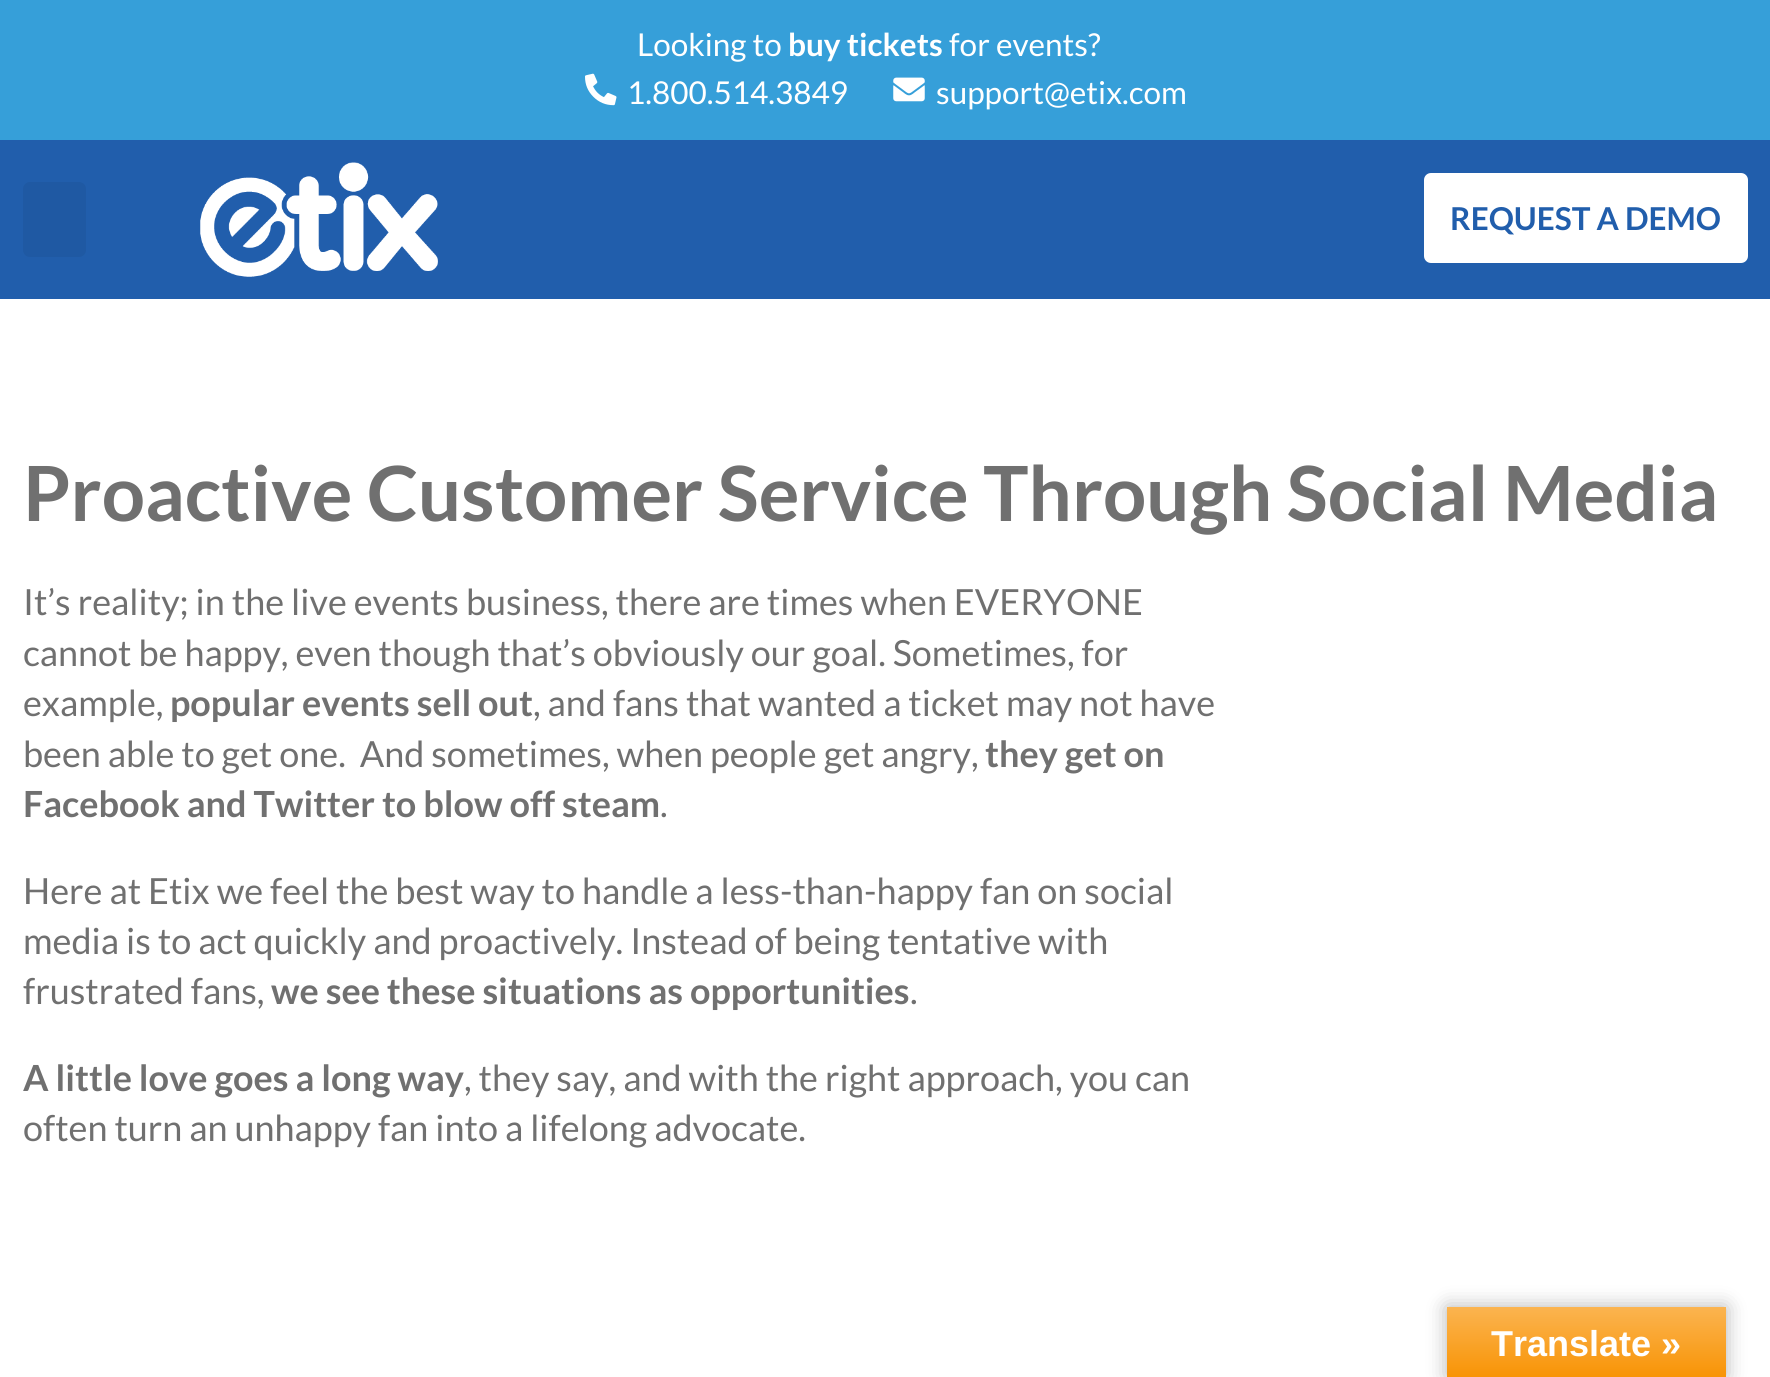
#include <cairo.h>
#include <math.h>
#include <stddef.h>

typedef struct { const char *family; double size; int italic, bold; unsigned color; } style_t;
static cairo_t *ctx;

static void ink(unsigned color) {
    cairo_set_source_rgb(ctx, (color >> 16) / 255.0, (color >> 8 & 255) / 255.0, (color & 255) / 255.0);
}

static void write(double x, double y, const char *s, const style_t *st) {
    cairo_select_font_face(ctx, st->family, st->italic ? CAIRO_FONT_SLANT_ITALIC : CAIRO_FONT_SLANT_NORMAL,
        st->bold ? CAIRO_FONT_WEIGHT_BOLD : CAIRO_FONT_WEIGHT_NORMAL);
    cairo_set_font_size(ctx, st->size);
    ink(st->color);
    cairo_move_to(ctx, x, y);
    cairo_show_text(ctx, s);
}

static void block(double x, double y, double w, double h, unsigned color) {
    ink(color);
    cairo_rectangle(ctx, x, y, w, h);
    cairo_fill(ctx);
}

static void round_path(double x, double y, double w, double h, double r) {
    cairo_new_sub_path(ctx);
    cairo_arc(ctx, x + w - r, y + h - r, r, 0, M_PI / 2);
    cairo_arc(ctx, x + r, y + h - r, r, M_PI / 2, M_PI);
    cairo_arc(ctx, x + r, y + r, r, M_PI, 1.5 * M_PI);
    cairo_arc(ctx, x + w - r, y + r, r, 1.5 * M_PI, 2 * M_PI);
    cairo_close_path(ctx);
}

static void blur_box(double x, double y, double w, double h, double r, double blur, double alpha) {
    cairo_push_group_with_content(ctx, CAIRO_CONTENT_ALPHA);
    cairo_set_operator(ctx, CAIRO_OPERATOR_SOURCE);
    for (int i = 15; i >= -15 && fmin(w, h) + blur * i / 3 > 0; i -= 2) {
        double e = blur * i / 6;
        cairo_set_source_rgba(ctx, 0, 0, 0, alpha * erfc((i - 1) / 8.5) / 2);
        round_path(x - e, y - e, w + 2 * e, h + 2 * e, fmax(0, fmin(r + e + blur * .6, fmin(w, h) / 2 + e)));
        cairo_fill(ctx);
    }
    cairo_pattern_t *soft = cairo_pop_group(ctx);
    cairo_mask(ctx, soft);
    cairo_pattern_destroy(soft);
}

static void paste(const char *path, double x, double y, double w, double h) {
    cairo_surface_t *image = cairo_image_surface_create_from_png(path);
    cairo_save(ctx);
    cairo_set_source_surface(ctx, image, x, y);
    cairo_rectangle(ctx, x, y, w, h);
    cairo_fill(ctx);
    cairo_restore(ctx);
    cairo_surface_destroy(image);
}

static const style_t s1 = {"Lato", 31.5, 0, 0, 0xffffff};
static const style_t s2 = {"Lato", 31.5, 0, 1, 0xffffff};
static const style_t s3 = {"Lato", 31.5, 0, 1, 0x215eac};
static const style_t s4 = {"Lato", 76.1, 0, 1, 0x707070};
static const style_t s5 = {"Lato", 36, 0, 0, 0x707070};
static const style_t s6 = {"Lato", 36, 0, 1, 0x707070};
static const style_t s7 = {"Liberation Sans", 36, 0, 1, 0xffffff};

int main(void) {
    cairo_surface_t *surface = cairo_image_surface_create(CAIRO_FORMAT_RGB24, 1770, 1377);
    ctx = cairo_create(surface);
    cairo_font_options_t *options = cairo_font_options_create();
    cairo_font_options_set_hint_metrics(options, CAIRO_HINT_METRICS_OFF);
    cairo_font_options_set_hint_style(options, CAIRO_HINT_STYLE_NONE);
    cairo_set_font_options(ctx, options);
    cairo_set_miter_limit(ctx, 4);
    cairo_pattern_t *gradient;
    ink(0xffffff);
    cairo_paint(ctx);
    block(0, 0, 1770, 140, 0x369fd9);
    write(637, 56, "Looking to", &s1);
    write(788, 56, "buy tickets", &s2);
    write(949, 56, "for events?", &s1);
    paste("pic1.png", 585, 73, 32, 33);
    write(627, 104, "1.800.514.3849", &s1);
    paste("pic2.png", 893, 77, 32, 25);
    write(936, 104, "support@etix.com", &s1);
    block(0, 140, 1770, 159, 0x215eac);
    ink(0x1f59a3);
    round_path(23, 182, 63, 75, 7);
    cairo_fill(ctx);
    paste("pic3.png", 200, 162, 238, 115);
    ink(0xffffff);
    round_path(1424, 173, 324, 90, 7);
    cairo_fill(ctx);
    write(1450, 230, "REQUEST A DEMO", &s3);
    write(23, 521, "Proactive Customer Service Through Social Media", &s4);
    write(23, 615, "It’s reality; in the live events business, there are times when EVERYONE", &s5);
    write(23, 666, "cannot be happy, even though that’s obviously our goal. Sometimes, for", &s5);
    write(23, 716, "example,", &s5);
    write(170, 716, "popular events sell out", &s6);
    write(533, 716, ", and fans that wanted a ticket may not have", &s5);
    write(23, 767, "been able to get one.  And sometimes, when people get angry,", &s5);
    write(985, 767, "they get on", &s6);
    write(23, 817, "Facebook and Twitter to blow off steam", &s6);
    write(660, 817, ".", &s5);
    write(23, 904, "Here at Etix we feel the best way to handle a less-than-happy fan on social", &s5);
    write(23, 954, "media is to act quickly and proactively. Instead of being tentative with", &s5);
    write(23, 1004, "frustrated fans,", &s5);
    write(271, 1004, "we see these situations as opportunities", &s6);
    write(910, 1004, ".", &s5);
    write(23, 1091, "A little love goes a long way", &s6);
    write(464, 1091, ", they say, and with the right approach, you can", &s5);
    write(23, 1141, "often turn an unhappy fan into a lifelong advocate.", &s5);
    ink(0x000000);
    blur_box(1447, 1307, 279, 70, 0, 10, 0.3);
    gradient = cairo_pattern_create_linear(1586, 1307, 1586, 1377);
    cairo_pattern_add_color_stop_rgba(gradient, 0, 0.984, 0.706, 0.314, 1);
    cairo_pattern_add_color_stop_rgba(gradient, 1, 0.973, 0.58, 0.024, 1);
    cairo_set_source(ctx, gradient);
    cairo_pattern_destroy(gradient);
    cairo_rectangle(ctx, 1447, 1307, 279, 70);
    cairo_fill(ctx);
    write(1491, 1356, "Translate »", &s7);
    cairo_surface_write_to_png(surface, "screenshot.png");
    cairo_font_options_destroy(options);
    cairo_destroy(ctx);
    cairo_surface_destroy(surface);
    return 0;
}
